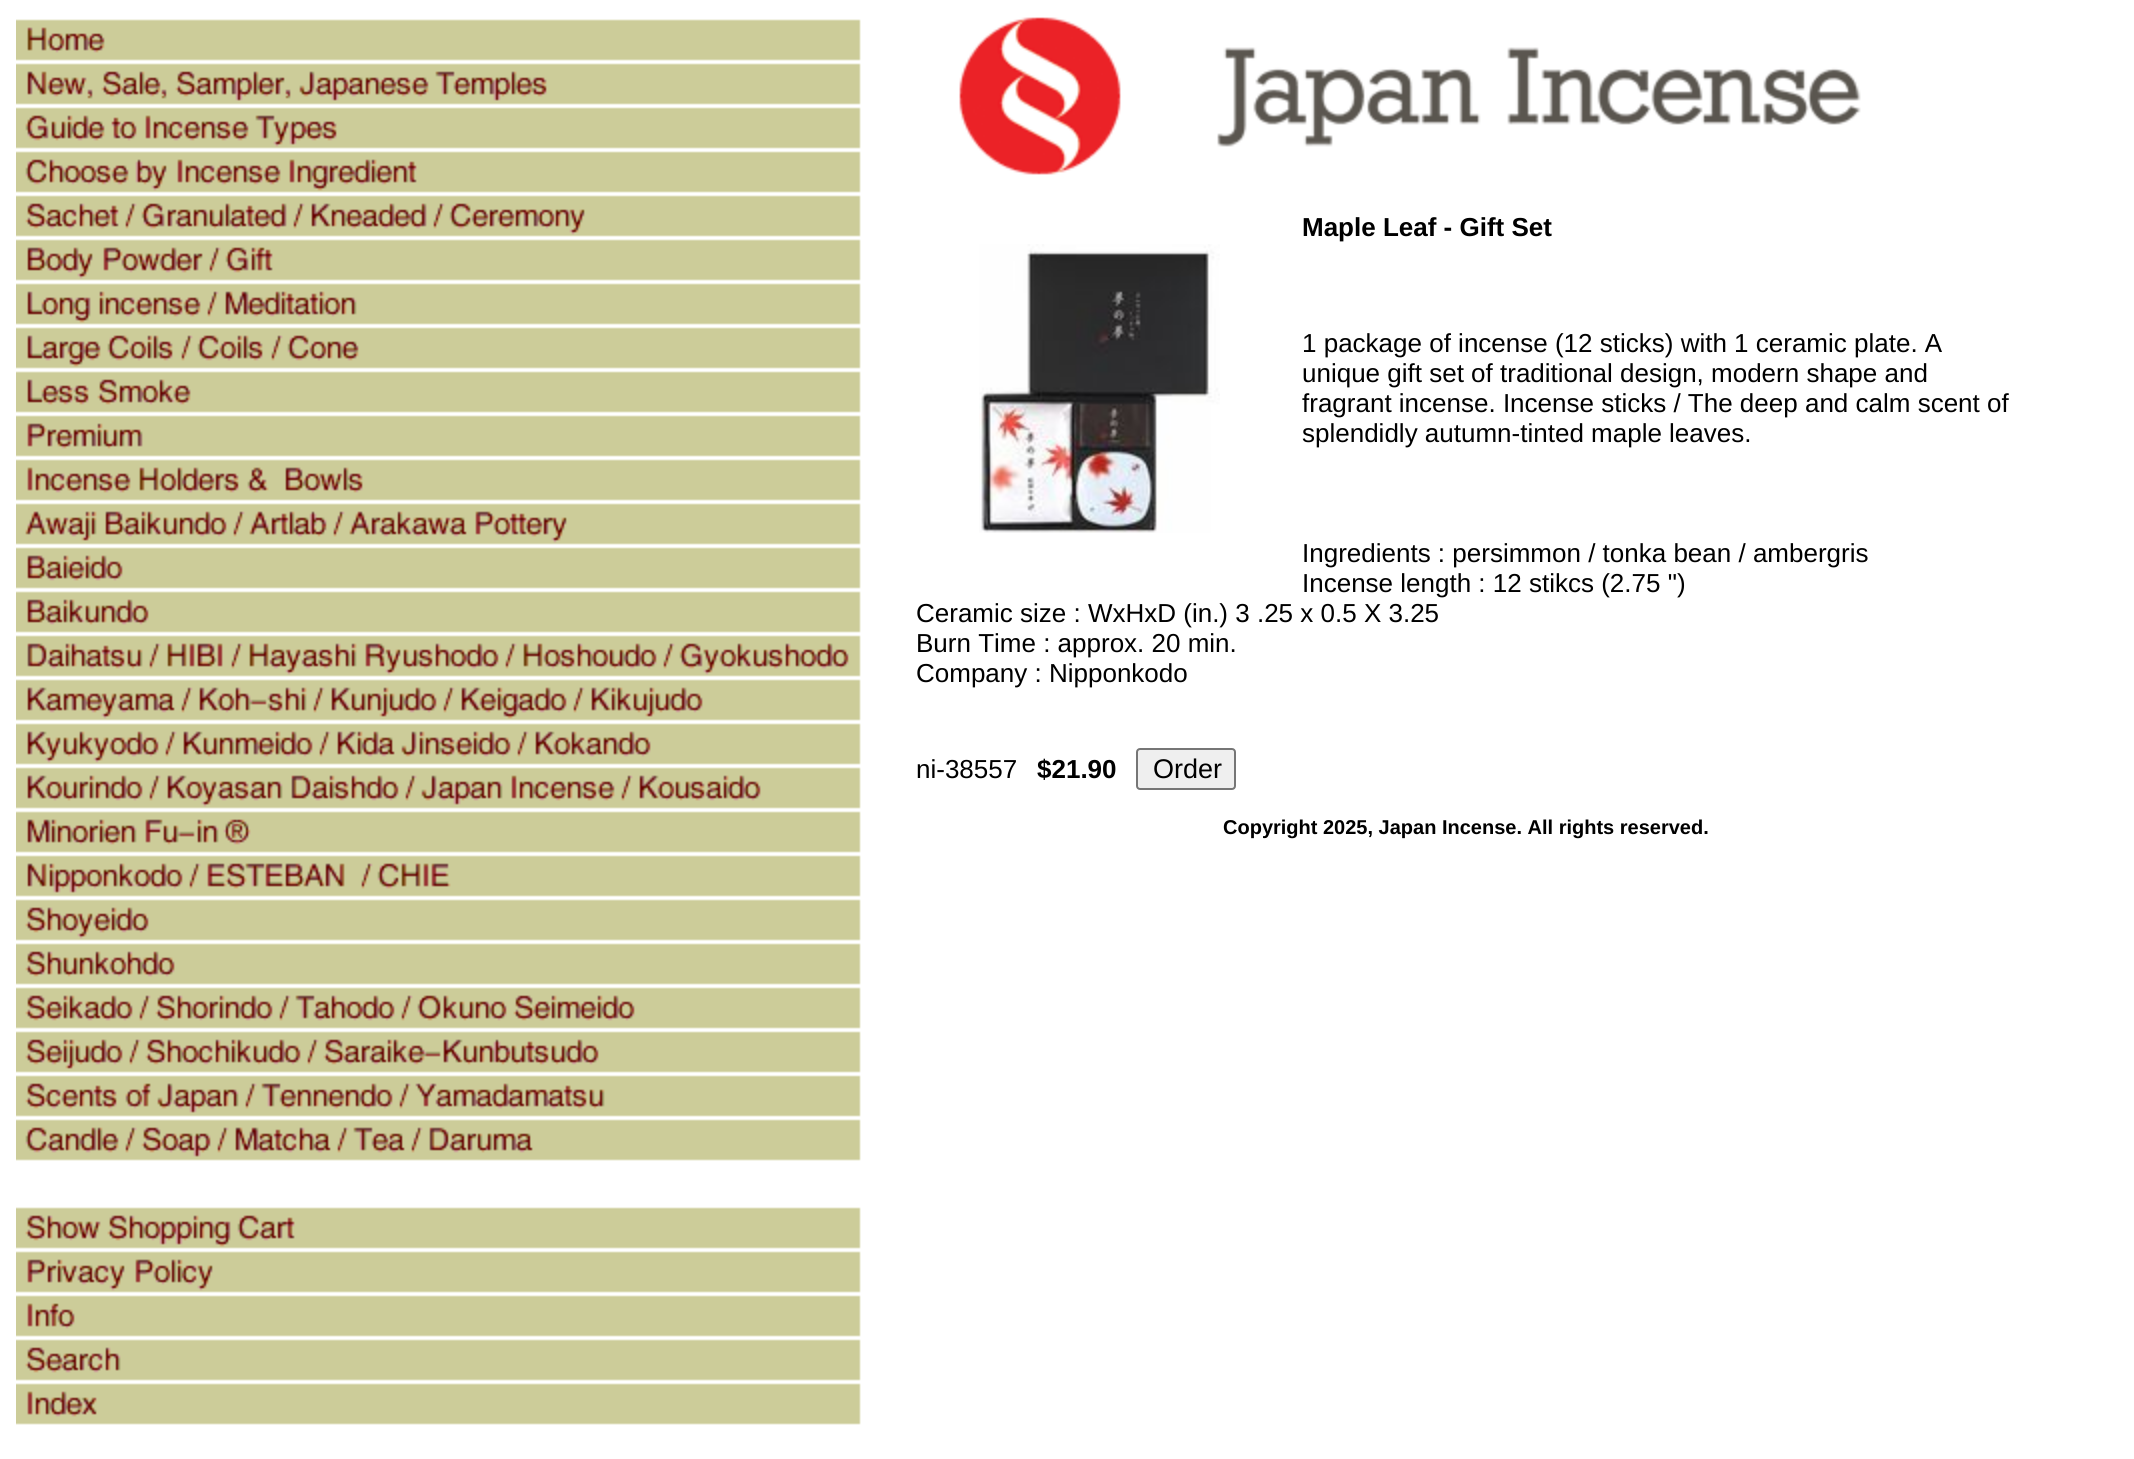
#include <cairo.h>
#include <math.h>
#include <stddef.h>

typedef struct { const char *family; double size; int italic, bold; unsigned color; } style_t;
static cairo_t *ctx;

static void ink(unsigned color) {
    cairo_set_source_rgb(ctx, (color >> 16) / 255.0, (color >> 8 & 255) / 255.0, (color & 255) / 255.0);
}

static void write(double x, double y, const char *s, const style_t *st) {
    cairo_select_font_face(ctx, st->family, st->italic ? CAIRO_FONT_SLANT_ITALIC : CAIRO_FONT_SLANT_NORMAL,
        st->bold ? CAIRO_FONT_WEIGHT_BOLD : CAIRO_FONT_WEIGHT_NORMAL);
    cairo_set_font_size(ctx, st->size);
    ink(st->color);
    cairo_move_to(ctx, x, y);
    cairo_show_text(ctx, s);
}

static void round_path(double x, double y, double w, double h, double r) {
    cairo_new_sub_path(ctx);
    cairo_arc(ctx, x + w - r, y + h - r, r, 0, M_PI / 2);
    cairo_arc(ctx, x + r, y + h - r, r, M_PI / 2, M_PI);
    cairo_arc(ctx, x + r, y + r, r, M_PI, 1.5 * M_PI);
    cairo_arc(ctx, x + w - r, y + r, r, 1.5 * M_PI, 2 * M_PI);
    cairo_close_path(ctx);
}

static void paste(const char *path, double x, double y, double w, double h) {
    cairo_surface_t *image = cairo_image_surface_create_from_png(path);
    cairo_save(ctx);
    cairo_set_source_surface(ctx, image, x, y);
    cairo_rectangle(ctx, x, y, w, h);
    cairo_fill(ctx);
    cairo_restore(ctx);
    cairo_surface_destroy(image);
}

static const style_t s1 = {"Liberation Sans", 26, 0, 1, 0x000000};
static const style_t s2 = {"Liberation Sans", 26, 0, 0, 0x000000};
static const style_t s3 = {"Liberation Sans", 27, 0, 0, 0x000000};
static const style_t s4 = {"Liberation Sans", 20, 0, 1, 0x000000};

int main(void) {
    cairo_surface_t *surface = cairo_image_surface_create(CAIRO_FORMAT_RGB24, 2134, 1459);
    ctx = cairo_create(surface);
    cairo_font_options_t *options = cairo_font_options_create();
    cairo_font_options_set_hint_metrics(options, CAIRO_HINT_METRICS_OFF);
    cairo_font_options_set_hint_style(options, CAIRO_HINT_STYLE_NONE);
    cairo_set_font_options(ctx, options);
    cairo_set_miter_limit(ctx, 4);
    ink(0xffffff);
    cairo_paint(ctx);
    paste("pic1.png", 16, 19, 845, 1406);
    paste("pic2.png", 959, 17, 902, 158);
    write(1302, 236, "Maple Leaf - Gift Set", &s1);
    write(1302, 352, "1 package of incense (12 sticks) with 1 ceramic plate. A", &s2);
    write(1302, 382, "unique gift set of traditional design, modern shape and", &s2);
    write(1302, 412, "fragrant incense. Incense sticks / The deep and calm scent of", &s2);
    write(1302, 442, "splendidly autumn-tinted maple leaves.", &s2);
    write(1302, 562, "Ingredients : persimmon / tonka bean / ambergris", &s2);
    write(1302, 592, "Incense length : 12 stikcs (2.75 \")", &s2);
    write(916, 622, "Ceramic size : WxHxD (in.) 3 .25 x 0.5 X 3.25", &s2);
    write(916, 652, "Burn Time : approx. 20 min.", &s2);
    write(916, 682, "Company : Nipponkodo", &s2);
    write(916, 778, "ni-38557", &s2);
    write(1037, 778, "$21.90", &s1);
    ink(0xefefef);
    round_path(1137, 749, 98, 40, 3);
    cairo_fill_preserve(ctx);
    ink(0x767676);
    cairo_stroke(ctx);
    write(1153, 778, "Order", &s3);
    paste("pic3.png", 979, 244, 241, 289);
    write(1223, 834, "Copyright 2025, Japan Incense. All rights reserved.", &s4);
    cairo_surface_write_to_png(surface, "screenshot.png");
    cairo_font_options_destroy(options);
    cairo_destroy(ctx);
    cairo_surface_destroy(surface);
    return 0;
}
